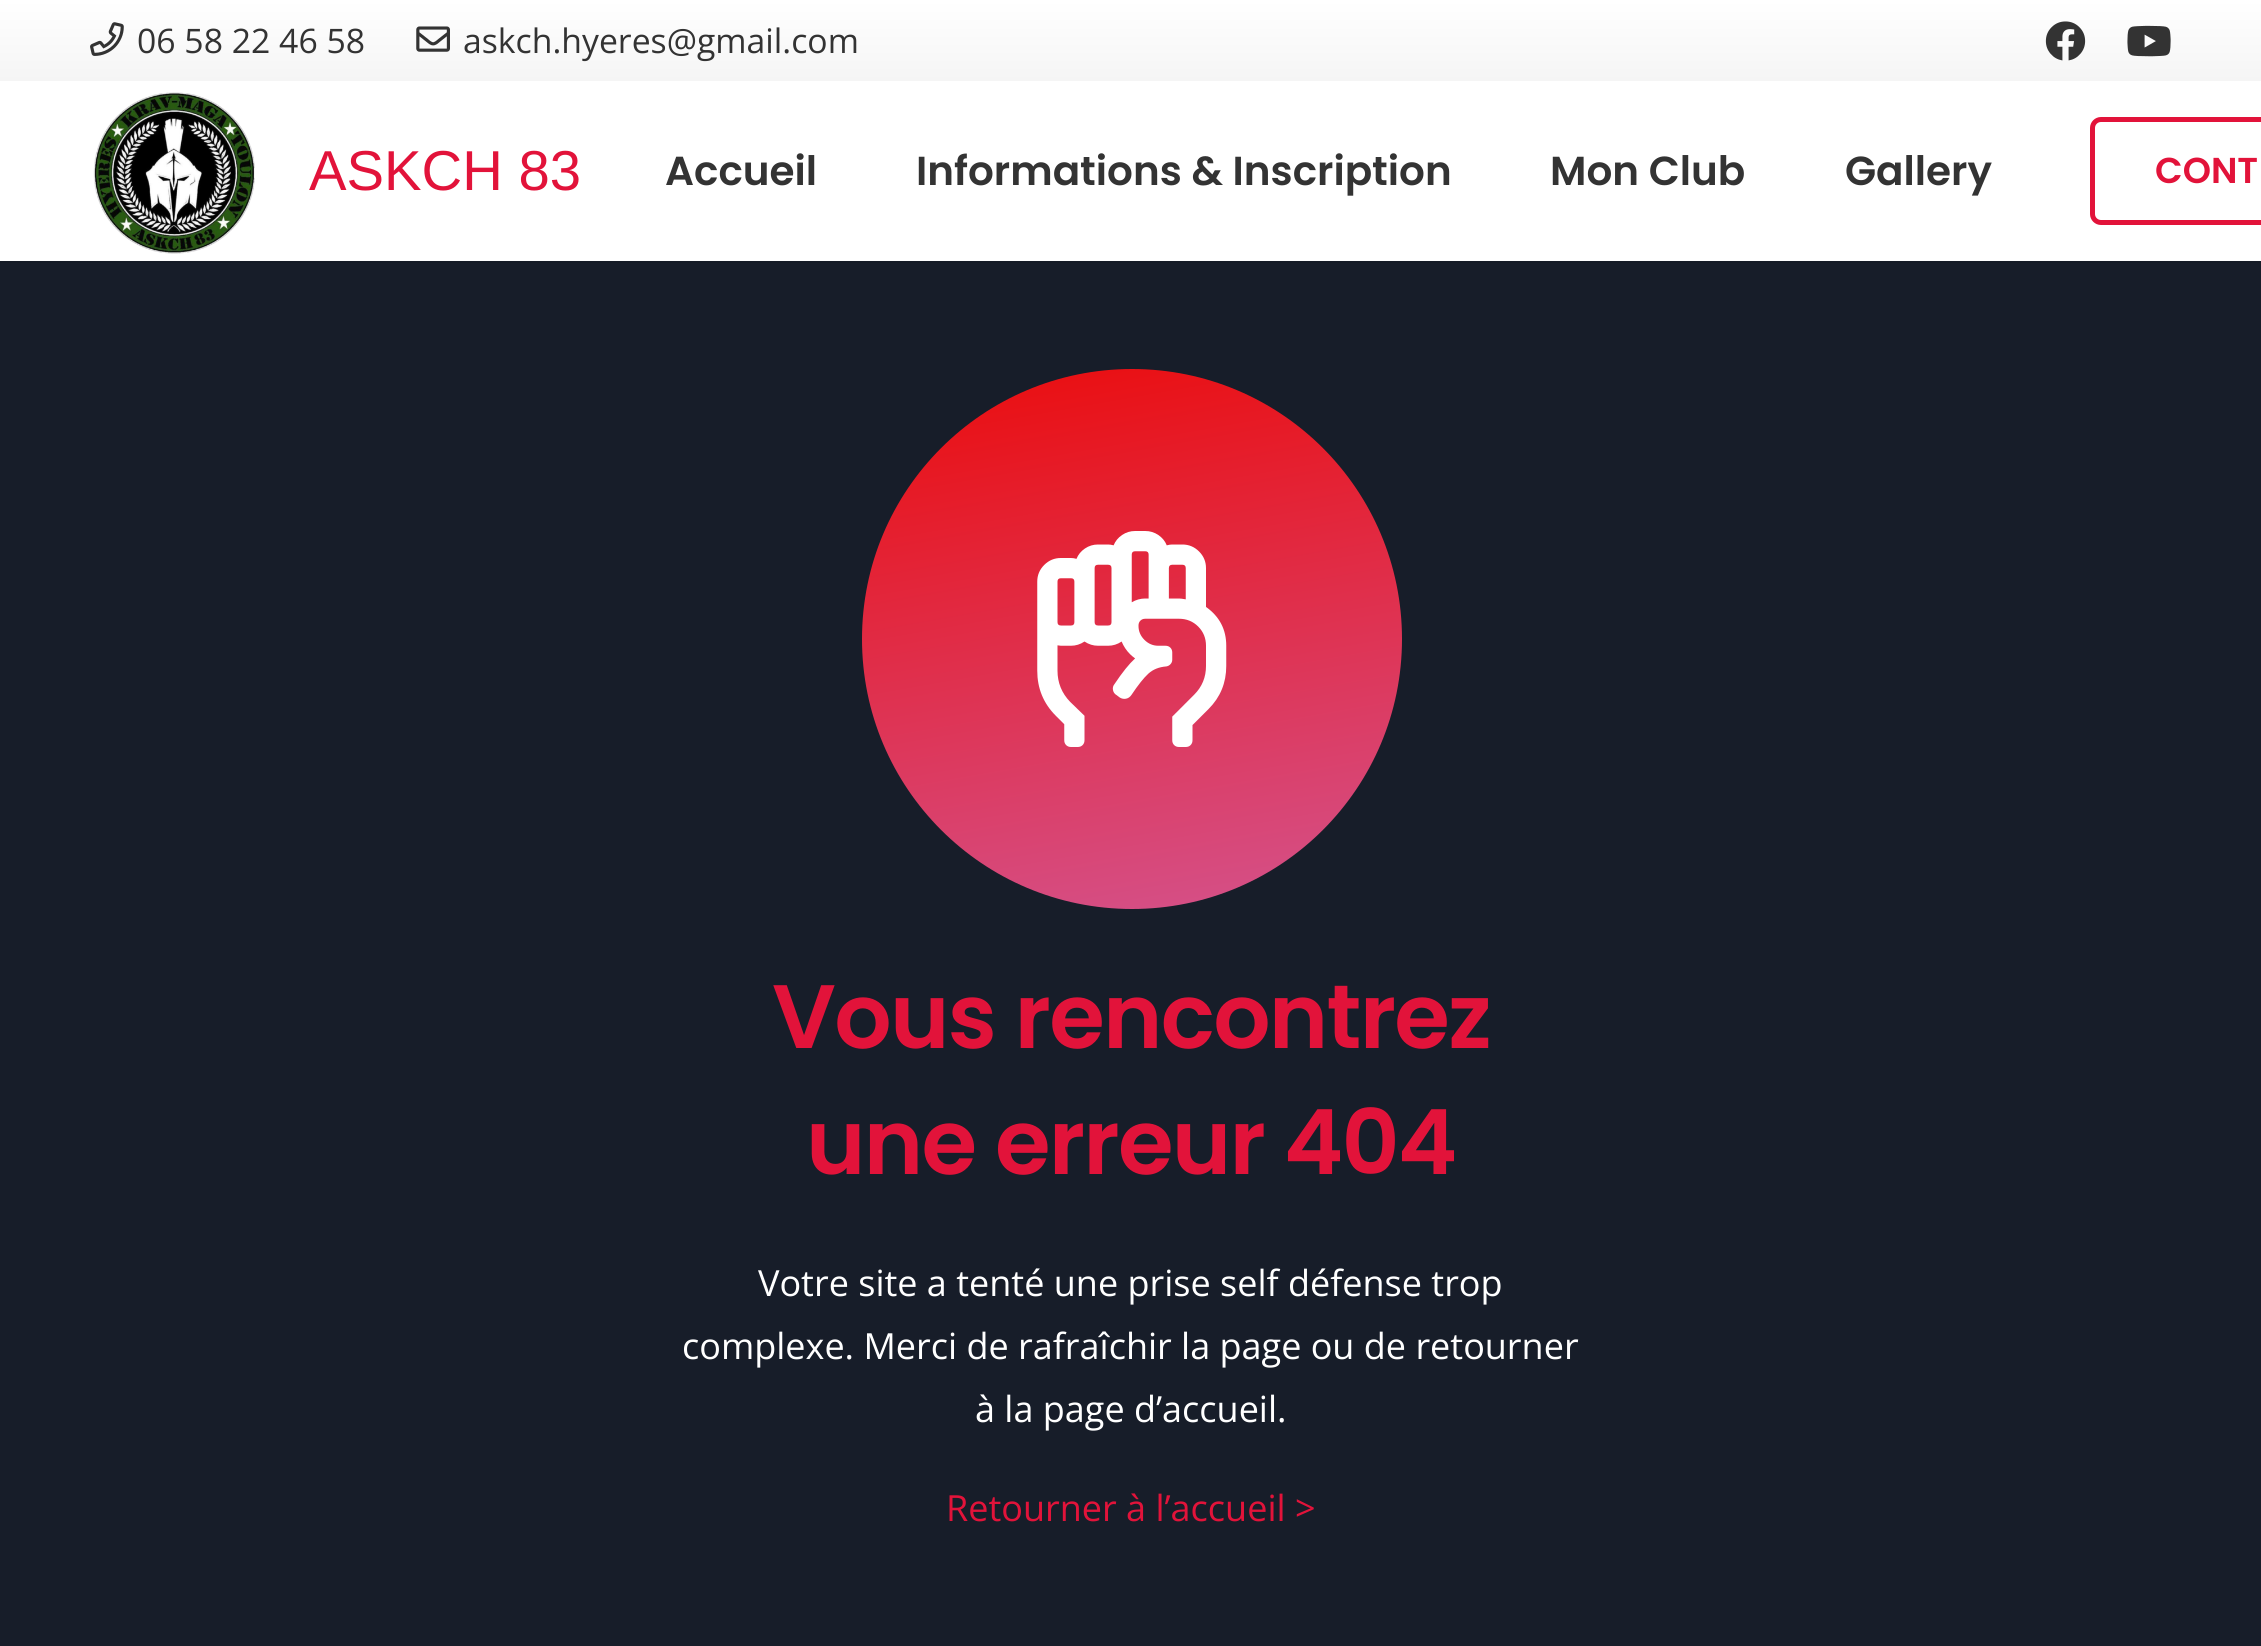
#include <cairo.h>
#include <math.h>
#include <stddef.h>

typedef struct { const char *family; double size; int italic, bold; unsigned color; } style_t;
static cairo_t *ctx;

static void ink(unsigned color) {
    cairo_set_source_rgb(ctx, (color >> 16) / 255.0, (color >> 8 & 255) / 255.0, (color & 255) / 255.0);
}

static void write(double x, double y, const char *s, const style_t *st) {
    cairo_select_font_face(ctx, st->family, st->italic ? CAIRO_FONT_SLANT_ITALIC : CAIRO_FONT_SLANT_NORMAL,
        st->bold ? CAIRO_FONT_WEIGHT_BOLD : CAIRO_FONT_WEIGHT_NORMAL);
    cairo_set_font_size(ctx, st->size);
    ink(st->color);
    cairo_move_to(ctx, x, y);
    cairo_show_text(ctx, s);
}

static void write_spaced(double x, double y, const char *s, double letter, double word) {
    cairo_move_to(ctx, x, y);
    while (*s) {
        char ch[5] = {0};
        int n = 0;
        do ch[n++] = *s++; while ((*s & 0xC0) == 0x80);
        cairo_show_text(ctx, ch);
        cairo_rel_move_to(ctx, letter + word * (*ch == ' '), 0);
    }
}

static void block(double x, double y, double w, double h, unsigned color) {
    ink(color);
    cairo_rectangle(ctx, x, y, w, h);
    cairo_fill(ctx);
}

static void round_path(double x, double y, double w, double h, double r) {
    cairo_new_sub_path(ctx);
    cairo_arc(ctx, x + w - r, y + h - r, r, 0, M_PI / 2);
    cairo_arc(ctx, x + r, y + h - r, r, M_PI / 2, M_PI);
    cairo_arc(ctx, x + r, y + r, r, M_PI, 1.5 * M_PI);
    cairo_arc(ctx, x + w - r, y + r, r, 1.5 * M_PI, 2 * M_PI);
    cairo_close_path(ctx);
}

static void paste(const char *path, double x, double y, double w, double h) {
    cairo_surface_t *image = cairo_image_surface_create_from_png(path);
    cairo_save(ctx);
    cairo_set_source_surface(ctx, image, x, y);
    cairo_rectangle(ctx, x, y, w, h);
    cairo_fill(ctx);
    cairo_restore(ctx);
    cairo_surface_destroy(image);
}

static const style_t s1 = {"Open Sans", 33.75, 0, 0, 0x333333};
static const style_t s2 = {"Liberation Sans", 56.25, 0, 0, 0xe2133a};
static const style_t s3 = {"Poppins SemiBold", 40.5, 0, 0, 0x333333};
static const style_t s4 = {"Poppins SemiBold", 36, 0, 0, 0xe2133a};
static const style_t s5 = {"Open Sans", 36, 0, 0, 0xffffff};
static const style_t s6 = {"Open Sans", 36, 0, 0, 0xe2133a};

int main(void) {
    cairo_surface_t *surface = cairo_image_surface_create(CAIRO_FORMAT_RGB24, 2261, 1646);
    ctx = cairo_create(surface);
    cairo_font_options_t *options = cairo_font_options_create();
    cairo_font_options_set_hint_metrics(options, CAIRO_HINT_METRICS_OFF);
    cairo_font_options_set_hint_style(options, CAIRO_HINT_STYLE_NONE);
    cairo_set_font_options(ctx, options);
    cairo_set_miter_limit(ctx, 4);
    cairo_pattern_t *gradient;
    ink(0x171d29);
    cairo_paint(ctx);
    gradient = cairo_pattern_create_linear(1131, 81, 1131, 0);
    cairo_pattern_add_color_stop_rgba(gradient, 0, 0.961, 0.961, 0.961, 1);
    cairo_pattern_add_color_stop_rgba(gradient, 1, 1, 1, 1, 1);
    cairo_set_source(ctx, gradient);
    cairo_pattern_destroy(gradient);
    cairo_rectangle(ctx, 0, 0, 2261, 81);
    cairo_fill(ctx);
    paste("pic1.png", 90, 22, 34, 34);
    write(137, 53, "06 58 22 46 58", &s1);
    paste("pic2.png", 416, 26, 34, 26);
    write(463, 53, "askch.hyeres@gmail.com", &s1);
    paste("pic3.png", 2045, 21, 41, 40);
    paste("pic4.png", 2127, 25, 44, 32);
    block(0, 261, 2261, 2, 0x151b26);
    block(0, 81, 2261, 180, 0xffffff);
    paste("pic5.png", 93, 92, 162, 162);
    write(309, 190, "ASKCH 83", &s2);
    write(665, 185, "Accueil", &s3);
    write(916, 185, "Informations & Inscription", &s3);
    write(1550, 185, "Mon Club", &s3);
    write(1845, 185, "Gallery", &s3);
    round_path(2092.5, 119.5, 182, 103, 8.5);
    ink(0xe2133a);
    cairo_set_line_width(ctx, 5);
    cairo_stroke(ctx);
    write(2155, 183, "CONT", &s4);
    gradient = cairo_pattern_create_linear(1077, 331, 1186, 947);
    cairo_pattern_add_color_stop_rgba(gradient, 0, 0.922, 0.047, 0.047, 1);
    cairo_pattern_add_color_stop_rgba(gradient, 1, 0.831, 0.325, 0.553, 1);
    cairo_set_source(ctx, gradient);
    cairo_pattern_destroy(gradient);
    cairo_new_path(ctx);
    cairo_arc(ctx, 1132, 639, 270, 0, 2 * M_PI);
    cairo_fill(ctx);
    paste("pic6.png", 1037, 531, 190, 216);
    cairo_set_font_size(ctx, 90);
    ink(0xe2133a);
    write_spaced(772, 1048, "Vous rencontrez", -1.75, 0);
    write_spaced(806, 1174, "une erreur 404", -1.75, 0);
    write(758, 1296, "Votre site a tenté une prise self défense trop", &s5);
    write(682, 1359, "complexe. Merci de rafraîchir la page ou de retourner", &s5);
    write(975, 1422, "à la page d’accueil.", &s5);
    write(946, 1521, "Retourner à l’accueil >", &s6);
    cairo_surface_write_to_png(surface, "screenshot.png");
    cairo_font_options_destroy(options);
    cairo_destroy(ctx);
    cairo_surface_destroy(surface);
    return 0;
}
